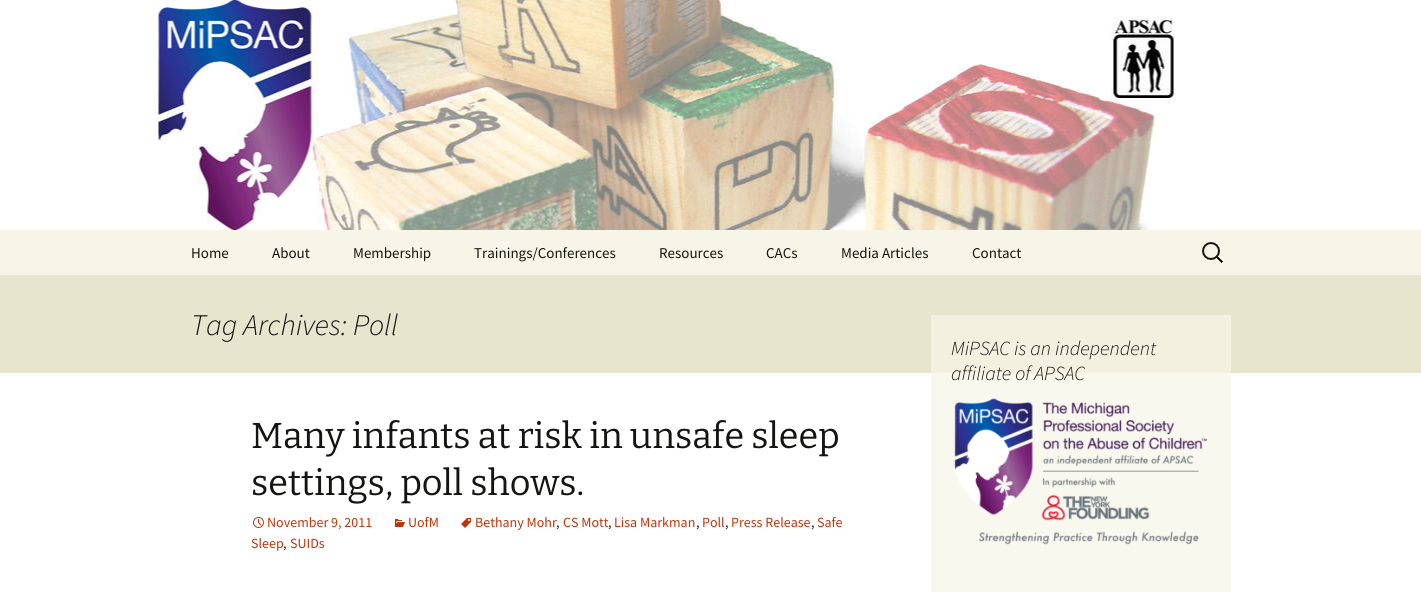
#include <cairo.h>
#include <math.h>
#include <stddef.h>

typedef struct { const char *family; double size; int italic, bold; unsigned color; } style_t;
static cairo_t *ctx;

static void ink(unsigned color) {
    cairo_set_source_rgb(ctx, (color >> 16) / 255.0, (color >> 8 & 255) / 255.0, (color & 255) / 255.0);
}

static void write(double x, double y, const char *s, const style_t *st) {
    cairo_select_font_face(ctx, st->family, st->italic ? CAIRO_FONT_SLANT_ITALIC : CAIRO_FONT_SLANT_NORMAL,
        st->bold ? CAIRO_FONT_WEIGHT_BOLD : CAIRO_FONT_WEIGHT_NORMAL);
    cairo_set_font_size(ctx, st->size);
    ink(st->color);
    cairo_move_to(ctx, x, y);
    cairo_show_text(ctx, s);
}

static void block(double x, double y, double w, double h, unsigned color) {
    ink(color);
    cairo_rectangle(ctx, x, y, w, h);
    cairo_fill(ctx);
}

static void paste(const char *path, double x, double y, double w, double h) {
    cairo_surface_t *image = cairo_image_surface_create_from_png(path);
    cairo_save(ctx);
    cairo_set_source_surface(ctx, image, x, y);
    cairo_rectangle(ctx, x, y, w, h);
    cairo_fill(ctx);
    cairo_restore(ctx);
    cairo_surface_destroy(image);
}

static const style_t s1 = {"Source Sans Pro", 15, 0, 0, 0x141412};
static const style_t s2 = {"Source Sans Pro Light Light", 30, 1, 0, 0x141412};
static const style_t s3 = {"Bitter Thin", 36, 0, 0, 0x141412};
static const style_t s4 = {"Source Sans Pro", 14, 0, 0, 0xbc360a};
static const style_t s5 = {"Source Sans Pro", 14, 0, 0, 0x141412};
static const style_t s6 = {"Source Sans Pro Light Light", 20, 1, 0, 0x141412};

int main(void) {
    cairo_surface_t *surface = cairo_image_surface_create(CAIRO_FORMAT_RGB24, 1421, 615);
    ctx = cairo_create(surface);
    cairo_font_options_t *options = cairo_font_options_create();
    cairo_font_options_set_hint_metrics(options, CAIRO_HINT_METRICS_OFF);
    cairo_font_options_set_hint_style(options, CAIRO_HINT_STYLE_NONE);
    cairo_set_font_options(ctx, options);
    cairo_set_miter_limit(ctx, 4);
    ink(0xffffff);
    cairo_paint(ctx);
    block(931, 373, 300, 219, 0xf9f8ee);
    paste("pic1.png", 158, 0, 1017, 230);
    block(0, 230, 1421, 45, 0xf7f5e7);
    write(191, 258, "Home", &s1);
    write(272, 258, "About", &s1);
    write(353, 258, "Membership", &s1);
    write(474, 258, "Trainings/Conferences", &s1);
    write(659, 258, "Resources", &s1);
    write(766, 258, "CACs", &s1);
    write(841, 258, "Media Articles", &s1);
    write(972, 258, "Contact", &s1);
    paste("pic2.png", 1202, 242, 21, 21);
    block(0, 275, 1421, 98, 0xe8e5ce);
    block(931, 315, 300, 58, 0xf3f0e0);
    write(191, 335, "Tag Archives: Poll", &s2);
    write(251, 448, "Many infants at risk in unsafe sleep", &s3);
    write(251, 495, "settings, poll shows.", &s3);
    paste("pic3.png", 461, 518, 10, 10);
    write(475, 527, "Bethany Mohr", &s4);
    write(556, 527, ",", &s5);
    write(563, 527, "CS Mott", &s4);
    write(608, 527, ",", &s5);
    write(614, 527, "Lisa Markman", &s4);
    write(696, 527, ",", &s5);
    write(702, 527, "Poll", &s4);
    write(725, 527, ",", &s5);
    write(731, 527, "Press Release", &s4);
    write(811, 527, ",", &s5);
    write(817, 527, "Safe", &s4);
    write(251, 548, "Sleep", &s4);
    write(283, 548, ",", &s5);
    write(290, 548, "SUIDs", &s4);
    paste("pic4.png", 253, 517, 11, 11);
    write(267, 527, "November 9, 2011", &s4);
    paste("pic5.png", 395, 519, 10, 8);
    write(408, 527, "UofM", &s4);
    write(951, 355, "MiPSAC is an independent", &s6);
    write(951, 380, "affiliate of APSAC", &s6);
    paste("pic6.png", 954, 398, 254, 147);
    cairo_surface_write_to_png(surface, "screenshot.png");
    cairo_font_options_destroy(options);
    cairo_destroy(ctx);
    cairo_surface_destroy(surface);
    return 0;
}
